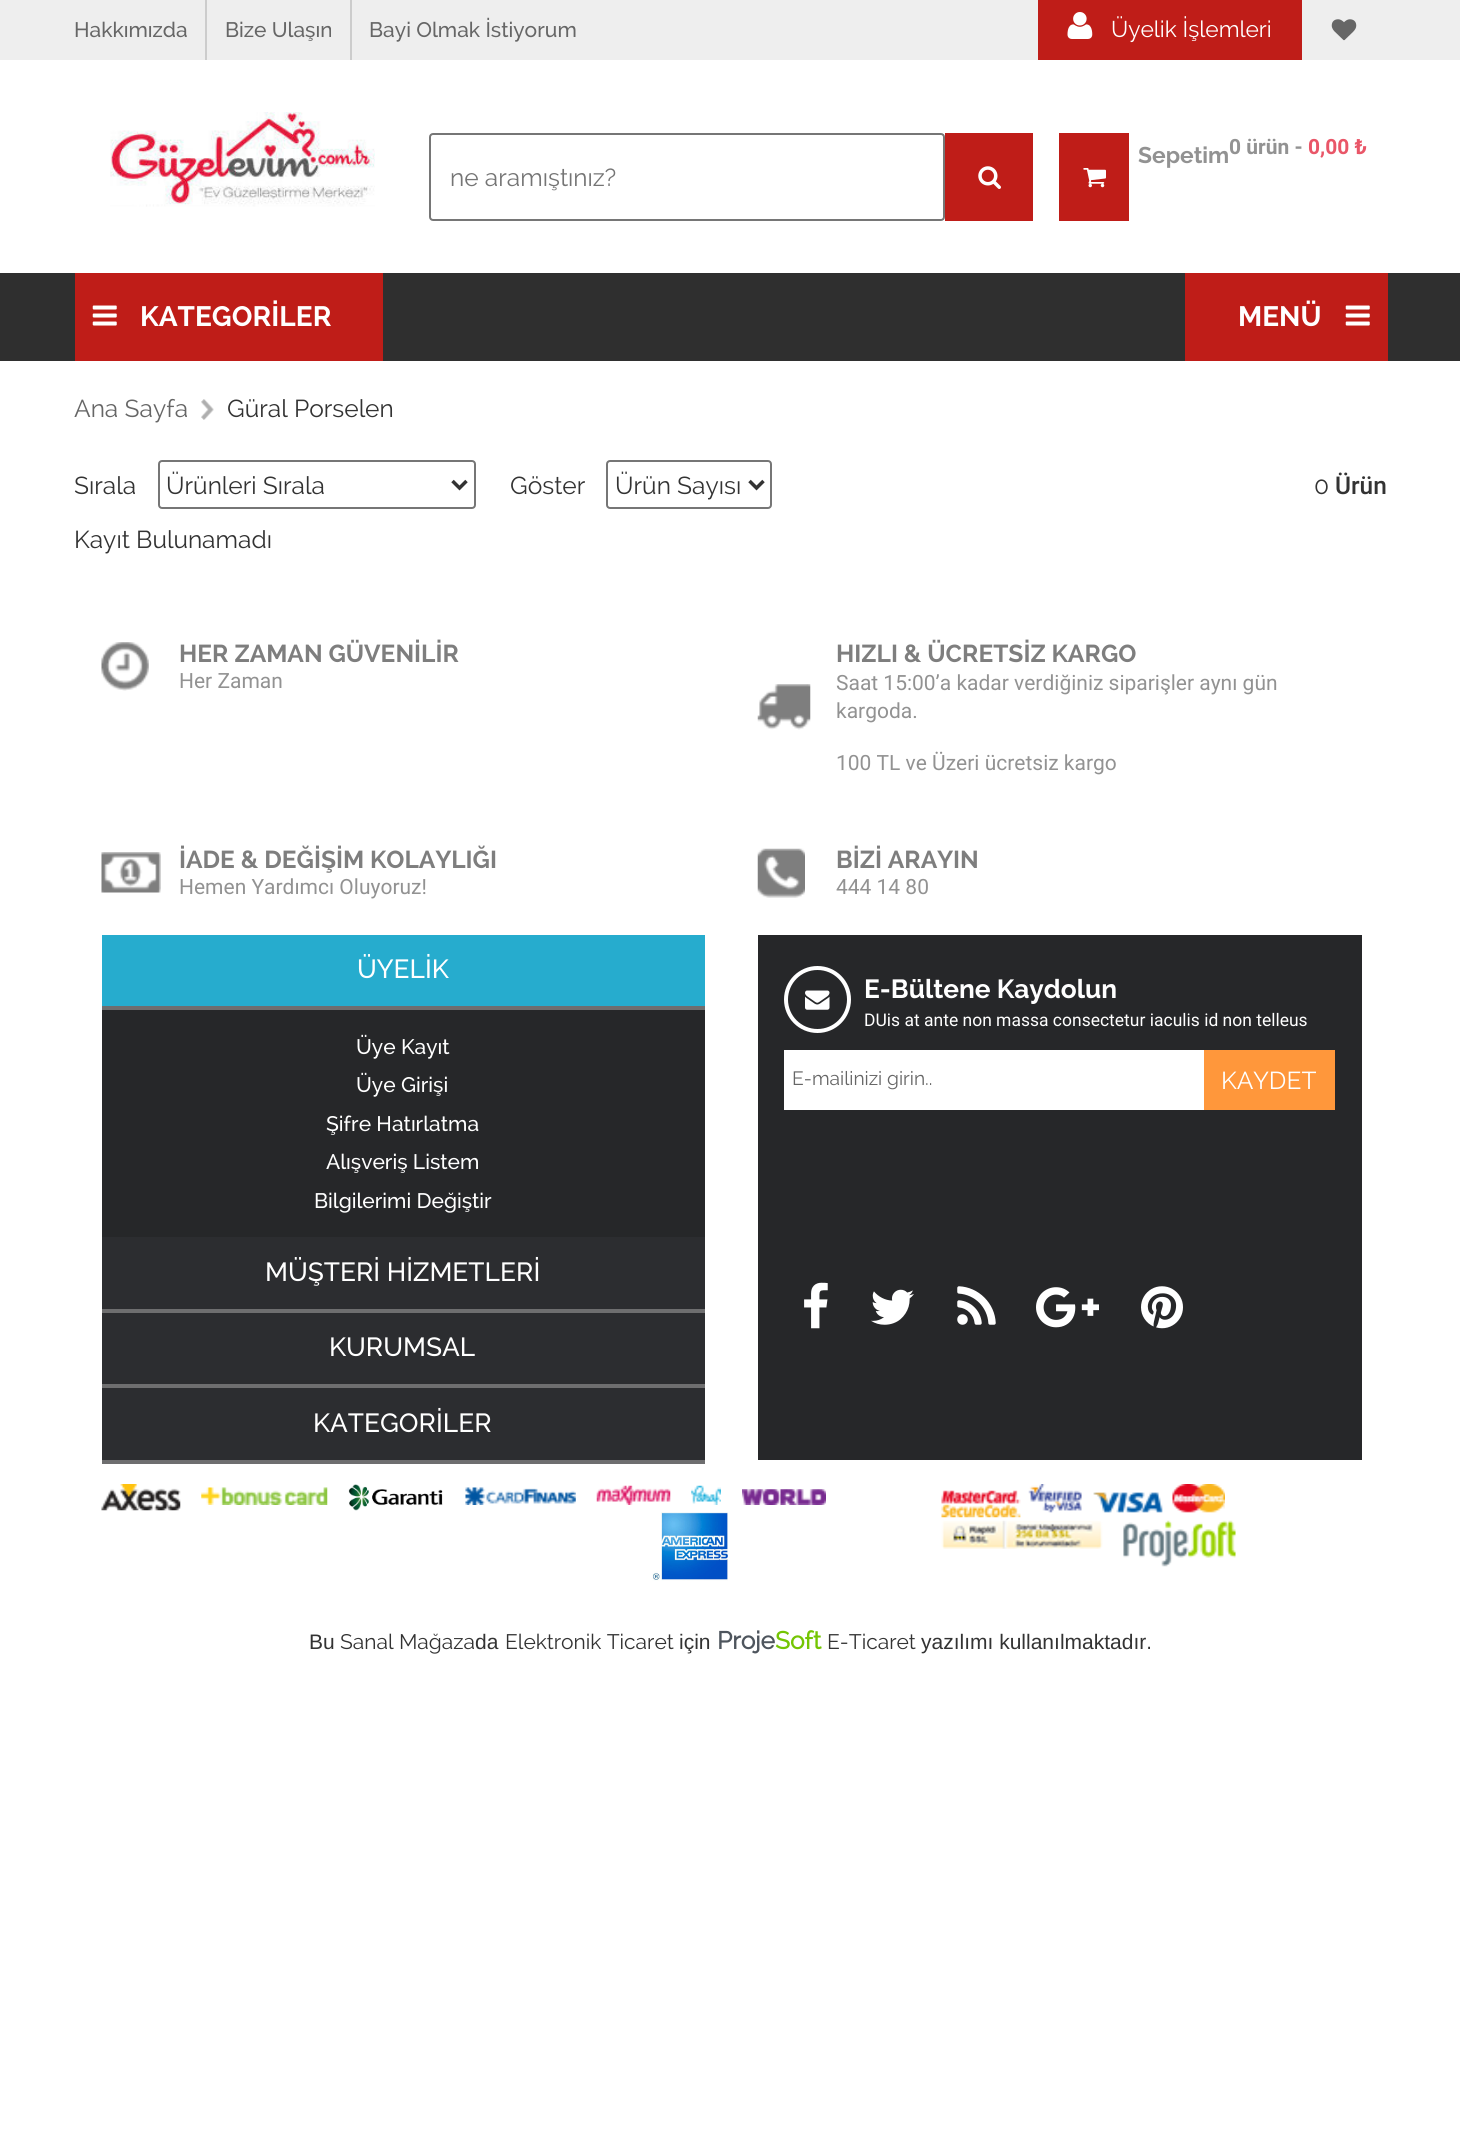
#include <cairo.h>
#include <math.h>
#include <stddef.h>

typedef struct { const char *family; double size; int italic, bold; unsigned color; } style_t;
static cairo_t *ctx;

static void ink(unsigned color) {
    cairo_set_source_rgb(ctx, (color >> 16) / 255.0, (color >> 8 & 255) / 255.0, (color & 255) / 255.0);
}

static void write(double x, double y, const char *s, const style_t *st) {
    cairo_select_font_face(ctx, st->family, st->italic ? CAIRO_FONT_SLANT_ITALIC : CAIRO_FONT_SLANT_NORMAL,
        st->bold ? CAIRO_FONT_WEIGHT_BOLD : CAIRO_FONT_WEIGHT_NORMAL);
    cairo_set_font_size(ctx, st->size);
    ink(st->color);
    cairo_move_to(ctx, x, y);
    cairo_show_text(ctx, s);
}

static void block(double x, double y, double w, double h, unsigned color) {
    ink(color);
    cairo_rectangle(ctx, x, y, w, h);
    cairo_fill(ctx);
}

static void round_path(double x, double y, double w, double h, double r) {
    cairo_new_sub_path(ctx);
    cairo_arc(ctx, x + w - r, y + h - r, r, 0, M_PI / 2);
    cairo_arc(ctx, x + r, y + h - r, r, M_PI / 2, M_PI);
    cairo_arc(ctx, x + r, y + r, r, M_PI, 1.5 * M_PI);
    cairo_arc(ctx, x + w - r, y + r, r, 1.5 * M_PI, 2 * M_PI);
    cairo_close_path(ctx);
}

static void paste(const char *path, double x, double y, double w, double h) {
    cairo_surface_t *image = cairo_image_surface_create_from_png(path);
    cairo_save(ctx);
    cairo_set_source_surface(ctx, image, x, y);
    cairo_rectangle(ctx, x, y, w, h);
    cairo_fill(ctx);
    cairo_restore(ctx);
    cairo_surface_destroy(image);
}

static const style_t s1 = {"Raleway Medium", 21, 0, 0, 0x666666};
static const style_t s2 = {"Raleway", 22.75, 0, 0, 0xffffff};
static const style_t s3 = {"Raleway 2", 22.75, 0, 1, 0x929292};
static const style_t s4 = {"Roboto", 21, 0, 1, 0x929292};
static const style_t s5 = {"Roboto", 21, 0, 1, 0xe95668};
static const style_t s6 = {"Raleway", 24.5, 0, 0, 0x757575};
static const style_t s7 = {"Raleway 2", 28, 0, 1, 0xffffff};
static const style_t s8 = {"Raleway", 24.5, 0, 0, 0x666666};
static const style_t s9 = {"Raleway", 24.5, 0, 0, 0x333333};
static const style_t s10 = {"Roboto Medium", 24.5, 0, 0, 0x333333};
static const style_t s11 = {"Raleway 2", 24.5, 0, 1, 0x7e7e7e};
static const style_t s12 = {"Roboto", 21, 0, 0, 0x929292};
static const style_t s13 = {"Raleway Medium", 26.25, 0, 0, 0xffffff};
static const style_t s14 = {"Raleway Medium", 21, 0, 0, 0xffffff};
static const style_t s15 = {"Raleway 2", 26.25, 0, 1, 0xffffff};
static const style_t s16 = {"Roboto", 17.5, 0, 0, 0xffffff};
static const style_t s17 = {"Raleway", 19.25, 0, 0, 0x666666};
static const style_t s18 = {"Raleway", 24.5, 0, 0, 0xffffff};
static const style_t s19 = {"Liberation Sans", 21, 0, 0, 0x333333};
static const style_t s20 = {"Raleway", 21, 0, 0, 0x333333};
static const style_t s21 = {"Raleway", 24.5, 0, 1, 0x4e555d};
static const style_t s22 = {"Raleway", 24.5, 0, 1, 0x74c503};

int main(void) {
    cairo_surface_t *surface = cairo_image_surface_create(CAIRO_FORMAT_RGB24, 1460, 2141);
    ctx = cairo_create(surface);
    cairo_font_options_t *options = cairo_font_options_create();
    cairo_font_options_set_hint_metrics(options, CAIRO_HINT_METRICS_OFF);
    cairo_font_options_set_hint_style(options, CAIRO_HINT_STYLE_NONE);
    cairo_set_font_options(ctx, options);
    cairo_set_miter_limit(ctx, 4);
    ink(0xffffff);
    cairo_paint(ctx);
    block(0, 0, 1460, 60, 0xeeeeee);
    write(74, 37, "Hakkımızda", &s1);
    block(205, 0, 2, 60, 0xcccccc);
    write(225, 37, "Bize Ulaşın", &s1);
    block(350, 0, 2, 60, 0xcccccc);
    write(369, 37, "Bayi Olmak İstiyorum", &s1);
    block(1038, 0, 264, 60, 0xbf1d18);
    paste("pic1.png", 1067, 12, 26, 27);
    write(1111, 37, "Üyelik İşlemleri", &s2);
    paste("pic2.png", 1331, 19, 26, 22);
    paste("pic3.png", 110, 112, 265, 95);
    block(1059, 133, 70, 88, 0xbf1d18);
    paste("pic4.png", 1083, 168, 23, 20);
    write(1138, 163, "Sepetim", &s3);
    write(1229, 154, "0 ürün -", &s4);
    write(1308, 154, "0,00 ₺", &s5);
    round_path(430, 134, 514, 86, 3);
    ink(0x767676);
    cairo_stroke(ctx);
    write(450, 186, "ne aramıştınız?", &s6);
    block(945, 133, 88, 88, 0xbf1d18);
    paste("pic5.png", 978, 166, 23, 23);
    block(0, 273, 1460, 88, 0x2f2f2f);
    block(75, 273, 308, 88, 0xbf1d18);
    paste("pic6.png", 92, 305, 25, 21);
    write(140, 326, "KATEGORİLER", &s7);
    block(1185, 273, 203, 88, 0xbf1d18);
    write(1238, 326, "MENÜ", &s7);
    paste("pic6.png", 1345, 305, 25, 21);
    write(74, 417, "Ana Sayfa", &s8);
    paste("pic7.png", 201, 399, 13, 21);
    write(227, 417, "Güral Porselen", &s9);
    write(74, 494, "Sırala", &s9);
    round_path(159, 461, 316, 47, 3);
    ink(0x767676);
    cairo_stroke(ctx);
    cairo_new_path(ctx);
    cairo_move_to(ctx, 452.5, 481);
    cairo_line_to(ctx, 459.5, 488);
    cairo_line_to(ctx, 466.5, 481);
    ink(0x333333);
    cairo_set_line_width(ctx, 3.5);
    cairo_stroke(ctx);
    write(166, 494, "Ürünleri Sırala", &s9);
    write(510, 494, "Göster", &s9);
    round_path(607, 461, 164, 47, 3);
    ink(0x767676);
    cairo_set_line_width(ctx, 2);
    cairo_stroke(ctx);
    cairo_new_path(ctx);
    cairo_move_to(ctx, 749.5, 481);
    cairo_line_to(ctx, 756.5, 488);
    cairo_line_to(ctx, 763.5, 481);
    ink(0x333333);
    cairo_set_line_width(ctx, 3.5);
    cairo_stroke(ctx);
    write(615, 494, "Ürün Sayısı", &s9);
    write(1314, 494, "0", &s9);
    write(1335, 494, "Ürün", &s10);
    write(74, 548, "Kayıt Bulunamadı", &s9);
    paste("pic8.png", 101, 642, 48, 49);
    write(179, 662, "HER ZAMAN GÜVENİLİR", &s11);
    write(179, 688, "Her Zaman", &s12);
    paste("pic9.png", 757, 684, 54, 46);
    write(836, 662, "HIZLI & ÜCRETSİZ KARGO", &s11);
    write(836, 690, "Saat 15:00’a kadar verdiğiniz siparişler aynı gün", &s12);
    write(836, 718, "kargoda.", &s12);
    write(836, 770, "100 TL ve Üzeri ücretsiz kargo", &s12);
    paste("pic10.png", 101, 852, 60, 41);
    write(179, 868, "İADE & DEĞİŞİM KOLAYLIĞI", &s11);
    write(179, 894, "Hemen Yardımcı Oluyoruz!", &s12);
    paste("pic11.png", 757, 848, 48, 50);
    write(836, 868, "BİZİ ARAYIN", &s11);
    write(836, 894, "444 14 80", &s12);
    block(102, 1010, 603, 227, 0x262729);
    block(102, 935, 603, 71, 0x26acce);
    block(102, 1006, 603, 4, 0x6e6e6f);
    write(357, 978, "ÜYELİK", &s13);
    write(356, 1054, "Üye Kayıt", &s14);
    write(356, 1092, "Üye Girişi", &s14);
    write(326, 1131, "Şifre Hatırlatma", &s14);
    write(326, 1169, "Alışveriş Listem", &s14);
    write(314, 1208, "Bilgilerimi Değiştir", &s14);
    block(102, 1237, 603, 72, 0x2c2d30);
    block(102, 1309, 603, 4, 0x6e6e6f);
    write(265, 1281, "MÜŞTERİ HİZMETLERİ", &s13);
    block(102, 1313, 603, 71, 0x2c2d30);
    block(102, 1384, 603, 4, 0x6e6e6f);
    write(329, 1356, "KURUMSAL", &s13);
    block(102, 1388, 603, 72, 0x2c2d30);
    block(102, 1460, 603, 4, 0x6e6e6f);
    write(313, 1432, "KATEGORİLER", &s13);
    block(758, 935, 604, 525, 0x262729);
    cairo_new_path(ctx);
    cairo_arc(ctx, 817.5, 999.5, 31.5, 0, 2 * M_PI);
    ink(0xffffff);
    cairo_set_line_width(ctx, 4);
    cairo_stroke(ctx);
    paste("pic12.png", 805, 990, 25, 20);
    write(864, 998, "E-Bültene Kaydolun", &s15);
    write(864, 1026, "DUis at ante non massa consectetur iaculis id non telleus", &s16);
    block(784, 1050, 420, 60, 0xffffff);
    write(792, 1085, "E-mailinizi girin..", &s17);
    block(1204, 1050, 131, 60, 0xff973b);
    write(1221, 1089, "KAYDET", &s18);
    paste("pic13.png", 804, 1282, 24, 47);
    paste("pic14.png", 871, 1289, 43, 36);
    paste("pic15.png", 957, 1286, 39, 39);
    paste("pic16.png", 1036, 1287, 63, 41);
    paste("pic17.png", 1141, 1286, 42, 43);
    paste("pic18.png", 101, 1484, 80, 27);
    paste("pic19.png", 201, 1487, 127, 18);
    paste("pic20.png", 348, 1484, 95, 27);
    paste("pic21.png", 465, 1487, 111, 18);
    paste("pic22.png", 596, 1485, 75, 20);
    paste("pic23.png", 691, 1485, 30, 20);
    paste("pic24.png", 742, 1489, 84, 16);
    paste("pic25.png", 652, 1512, 76, 69);
    paste("pic26.png", 941, 1484, 284, 34);
    paste("pic27.png", 941, 1520, 162, 29);
    paste("pic28.png", 1123, 1520, 113, 47);
    write(309, 1649, "Bu", &s19);
    write(340, 1649, "Sanal Mağaza", &s20);
    write(475, 1649, "da", &s19);
    write(505, 1649, "Elektronik Ticaret", &s20);
    write(679, 1649, "için", &s19);
    write(717, 1649, "Proje", &s21);
    write(775, 1649, "Soft", &s22);
    write(827, 1649, "E-Ticaret", &s20);
    write(921, 1649, "yazılımı kullanılmaktadır.", &s19);
    cairo_surface_write_to_png(surface, "screenshot.png");
    cairo_font_options_destroy(options);
    cairo_destroy(ctx);
    cairo_surface_destroy(surface);
    return 0;
}
